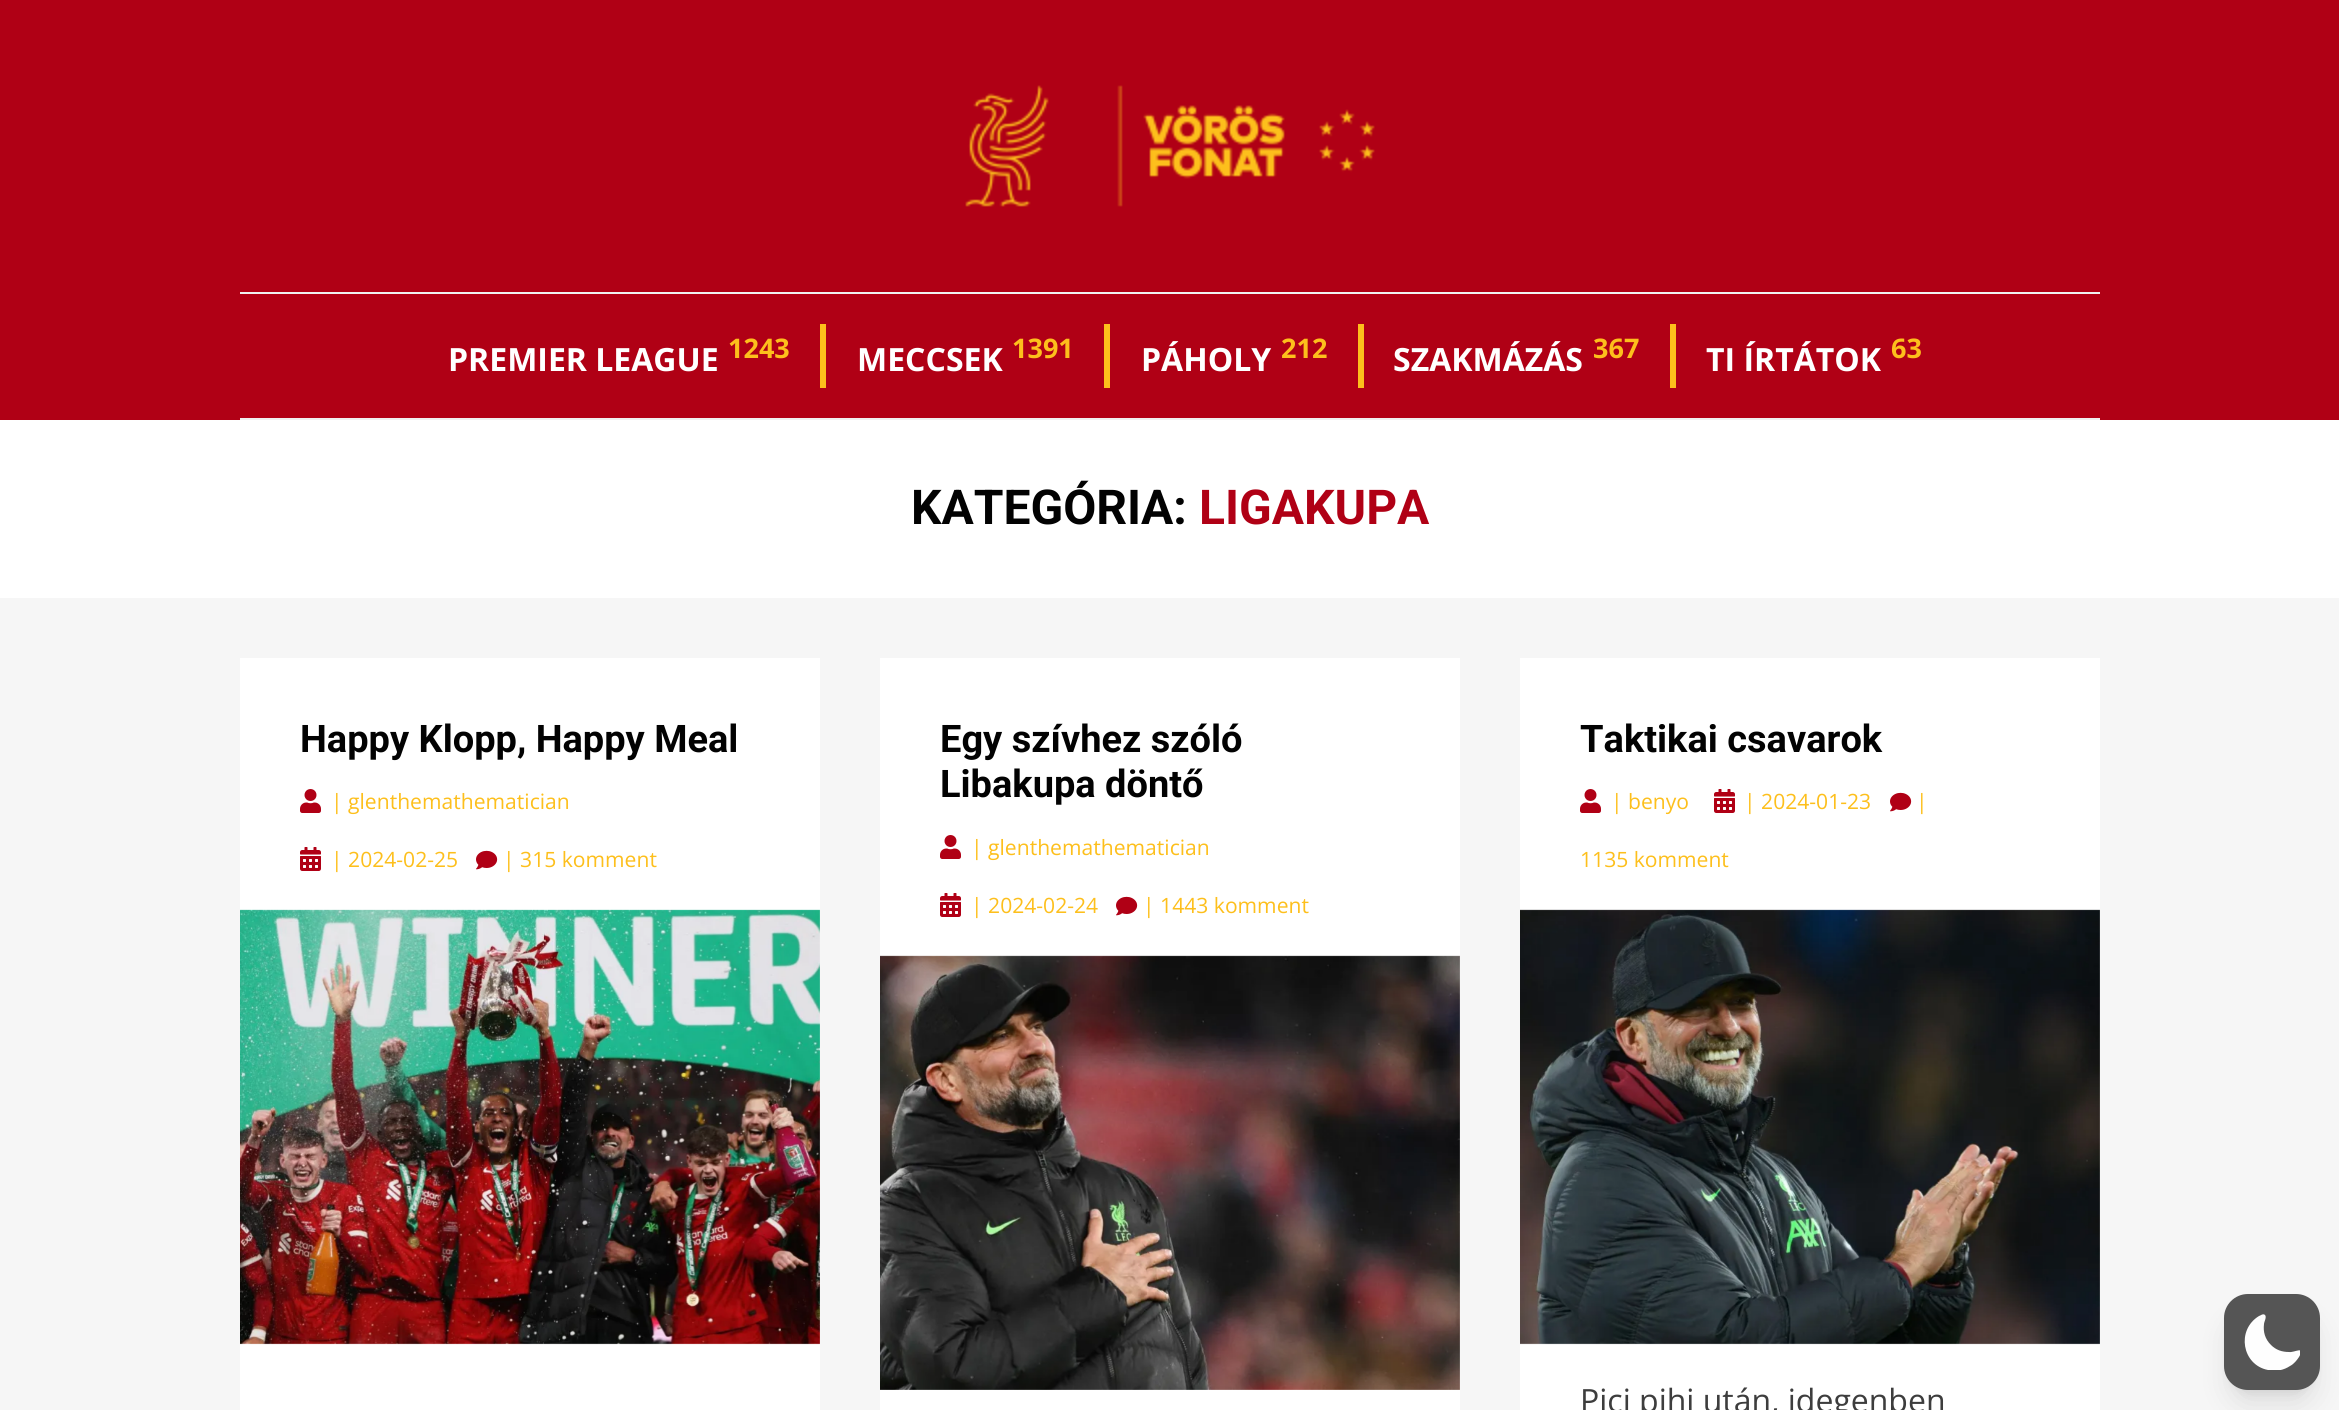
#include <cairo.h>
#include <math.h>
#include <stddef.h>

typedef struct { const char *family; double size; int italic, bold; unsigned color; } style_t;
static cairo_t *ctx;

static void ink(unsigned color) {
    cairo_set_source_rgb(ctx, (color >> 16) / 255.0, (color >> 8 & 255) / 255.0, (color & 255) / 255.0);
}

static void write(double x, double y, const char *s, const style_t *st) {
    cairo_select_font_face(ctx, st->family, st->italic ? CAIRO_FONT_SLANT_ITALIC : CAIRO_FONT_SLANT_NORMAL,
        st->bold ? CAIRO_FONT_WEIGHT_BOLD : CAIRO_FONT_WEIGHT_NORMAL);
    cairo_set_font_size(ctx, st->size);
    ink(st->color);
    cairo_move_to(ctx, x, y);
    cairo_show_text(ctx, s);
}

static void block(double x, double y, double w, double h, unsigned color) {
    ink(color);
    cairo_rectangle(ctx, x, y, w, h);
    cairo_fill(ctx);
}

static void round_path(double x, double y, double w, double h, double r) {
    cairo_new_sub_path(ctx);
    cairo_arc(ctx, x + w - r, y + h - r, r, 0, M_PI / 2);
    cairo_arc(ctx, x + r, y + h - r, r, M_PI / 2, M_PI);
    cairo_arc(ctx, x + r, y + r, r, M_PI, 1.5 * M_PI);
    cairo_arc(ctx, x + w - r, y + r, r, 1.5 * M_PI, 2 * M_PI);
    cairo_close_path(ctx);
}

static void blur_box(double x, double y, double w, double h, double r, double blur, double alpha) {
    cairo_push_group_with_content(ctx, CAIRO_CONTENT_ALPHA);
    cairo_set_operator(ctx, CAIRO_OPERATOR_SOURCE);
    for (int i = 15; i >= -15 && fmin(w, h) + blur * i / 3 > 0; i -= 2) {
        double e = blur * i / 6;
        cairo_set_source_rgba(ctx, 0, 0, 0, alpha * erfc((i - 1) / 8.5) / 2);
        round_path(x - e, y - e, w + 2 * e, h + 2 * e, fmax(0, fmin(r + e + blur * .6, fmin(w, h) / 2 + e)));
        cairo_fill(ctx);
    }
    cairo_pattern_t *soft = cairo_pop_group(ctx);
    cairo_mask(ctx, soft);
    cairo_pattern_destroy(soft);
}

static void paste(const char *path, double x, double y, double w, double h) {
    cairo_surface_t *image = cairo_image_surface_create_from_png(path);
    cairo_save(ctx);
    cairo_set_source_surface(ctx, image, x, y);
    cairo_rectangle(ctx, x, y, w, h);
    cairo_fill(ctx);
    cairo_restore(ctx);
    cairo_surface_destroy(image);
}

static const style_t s1 = {"Open Sans", 32, 0, 1, 0xffffff};
static const style_t s2 = {"Open Sans", 27, 0, 1, 0xfdbf1c};
static const style_t s3 = {"Roboto", 48, 0, 1, 0x020202};
static const style_t s4 = {"Roboto", 48, 0, 1, 0xb00015};
static const style_t s5 = {"Roboto", 38, 0, 1, 0x020202};
static const style_t s6 = {"Open Sans", 21.1, 0, 0, 0xfdbf1c};
static const style_t s7 = {"Open Sans", 32, 0, 0, 0x3d3d3d};

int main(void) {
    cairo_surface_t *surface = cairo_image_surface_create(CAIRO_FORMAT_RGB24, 2339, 1410);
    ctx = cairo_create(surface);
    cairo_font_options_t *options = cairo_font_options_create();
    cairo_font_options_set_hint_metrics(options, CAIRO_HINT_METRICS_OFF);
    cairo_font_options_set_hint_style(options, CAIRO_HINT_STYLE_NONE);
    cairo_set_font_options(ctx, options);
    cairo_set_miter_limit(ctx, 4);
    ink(0xf6f6f6);
    cairo_paint(ctx);
    block(0, 0, 2339, 420, 0xb00015);
    paste("pic1.png", 965, 85, 410, 122);
    block(240, 292, 1860, 2, 0xf0f0f0);
    block(240, 418, 1860, 2, 0xf0f0f0);
    block(820, 324, 6, 64, 0xfdbf1c);
    write(448, 371, "PREMIER LEAGUE", &s1);
    write(728, 358, "1243", &s2);
    block(1104, 324, 6, 64, 0xfdbf1c);
    write(857, 371, "MECCSEK", &s1);
    write(1012, 358, "1391", &s2);
    block(1358, 324, 6, 64, 0xfdbf1c);
    write(1141, 371, "PÁHOLY", &s1);
    write(1281, 358, "212", &s2);
    block(1670, 324, 6, 64, 0xfdbf1c);
    write(1393, 371, "SZAKMÁZÁS", &s1);
    write(1593, 358, "367", &s2);
    write(1706, 371, "TI ÍRTÁTOK", &s1);
    write(1891, 358, "63", &s2);
    block(0, 420, 2339, 178, 0xffffff);
    write(911, 524, "KATEGÓRIA:", &s3);
    write(1199, 524, "LIGAKUPA", &s4);
    block(240, 658, 580, 752, 0xffffff);
    write(300, 752, "Happy Klopp, Happy Meal", &s5);
    paste("pic2.png", 300, 789, 21, 24);
    write(331, 809, "| glenthemathematician", &s6);
    paste("pic3.png", 300, 847, 21, 24);
    write(331, 867, "| 2024-02-25", &s6);
    paste("pic4.png", 476, 850, 22, 20);
    write(503, 867, "| 315 komment", &s6);
    paste("pic5.png", 240, 909, 580, 436);
    block(880, 658, 580, 752, 0xffffff);
    write(940, 752, "Egy szívhez szóló", &s5);
    write(940, 797, "Libakupa döntő", &s5);
    paste("pic2.png", 940, 835, 21, 24);
    write(971, 855, "| glenthemathematician", &s6);
    paste("pic3.png", 940, 893, 21, 24);
    write(971, 913, "| 2024-02-24", &s6);
    paste("pic4.png", 1116, 896, 22, 20);
    write(1143, 913, "| 1443 komment", &s6);
    paste("pic6.png", 880, 955, 580, 435);
    block(1520, 658, 580, 752, 0xffffff);
    write(1580, 752, "Taktikai csavarok", &s5);
    paste("pic2.png", 1580, 789, 21, 24);
    write(1611, 809, "| benyo", &s6);
    paste("pic3.png", 1714, 789, 21, 24);
    write(1744, 809, "| 2024-01-23", &s6);
    paste("pic4.png", 1890, 792, 22, 20);
    write(1916, 809, "|", &s6);
    write(1580, 867, "1135 komment", &s6);
    paste("pic7.png", 1520, 909, 580, 436);
    write(1580, 1412, "Pici pihi után, idegenben", &s7);
    ink(0x000000);
    blur_box(2232, 1310, 80, 80, 16, 6, 0.1);
    blur_box(2230, 1320, 84, 84, 18, 15, 0.1);
    ink(0x555555);
    round_path(2224, 1294, 96, 96, 24);
    cairo_fill(ctx);
    cairo_save(ctx);
    cairo_rectangle(ctx, 2244, 1314, 56, 56);
    cairo_clip(ctx);
    ink(0xfefefe);
    cairo_set_fill_rule(ctx, CAIRO_FILL_RULE_EVEN_ODD);
    cairo_new_path(ctx);
    cairo_move_to(ctx, 2265, 1315);
    cairo_curve_to(ctx, 2267, 1317, 2264, 1322, 2264, 1324);
    cairo_curve_to(ctx, 2263, 1332, 2265, 1339, 2271, 1345);
    cairo_curve_to(ctx, 2276, 1350, 2282, 1352, 2289, 1352);
    cairo_curve_to(ctx, 2294, 1353, 2306, 1345, 2299, 1357);
    cairo_curve_to(ctx, 2297, 1360, 2294, 1364, 2290, 1366);
    cairo_curve_to(ctx, 2284, 1370, 2276, 1372, 2268, 1370);
    cairo_curve_to(ctx, 2242, 1365, 2236, 1330, 2259, 1316);
    cairo_curve_to(ctx, 2260, 1316, 2263, 1313, 2265, 1315);
    cairo_close_path(ctx);
    cairo_fill(ctx);
    cairo_restore(ctx);
    cairo_surface_write_to_png(surface, "screenshot.png");
    cairo_font_options_destroy(options);
    cairo_destroy(ctx);
    cairo_surface_destroy(surface);
    return 0;
}
